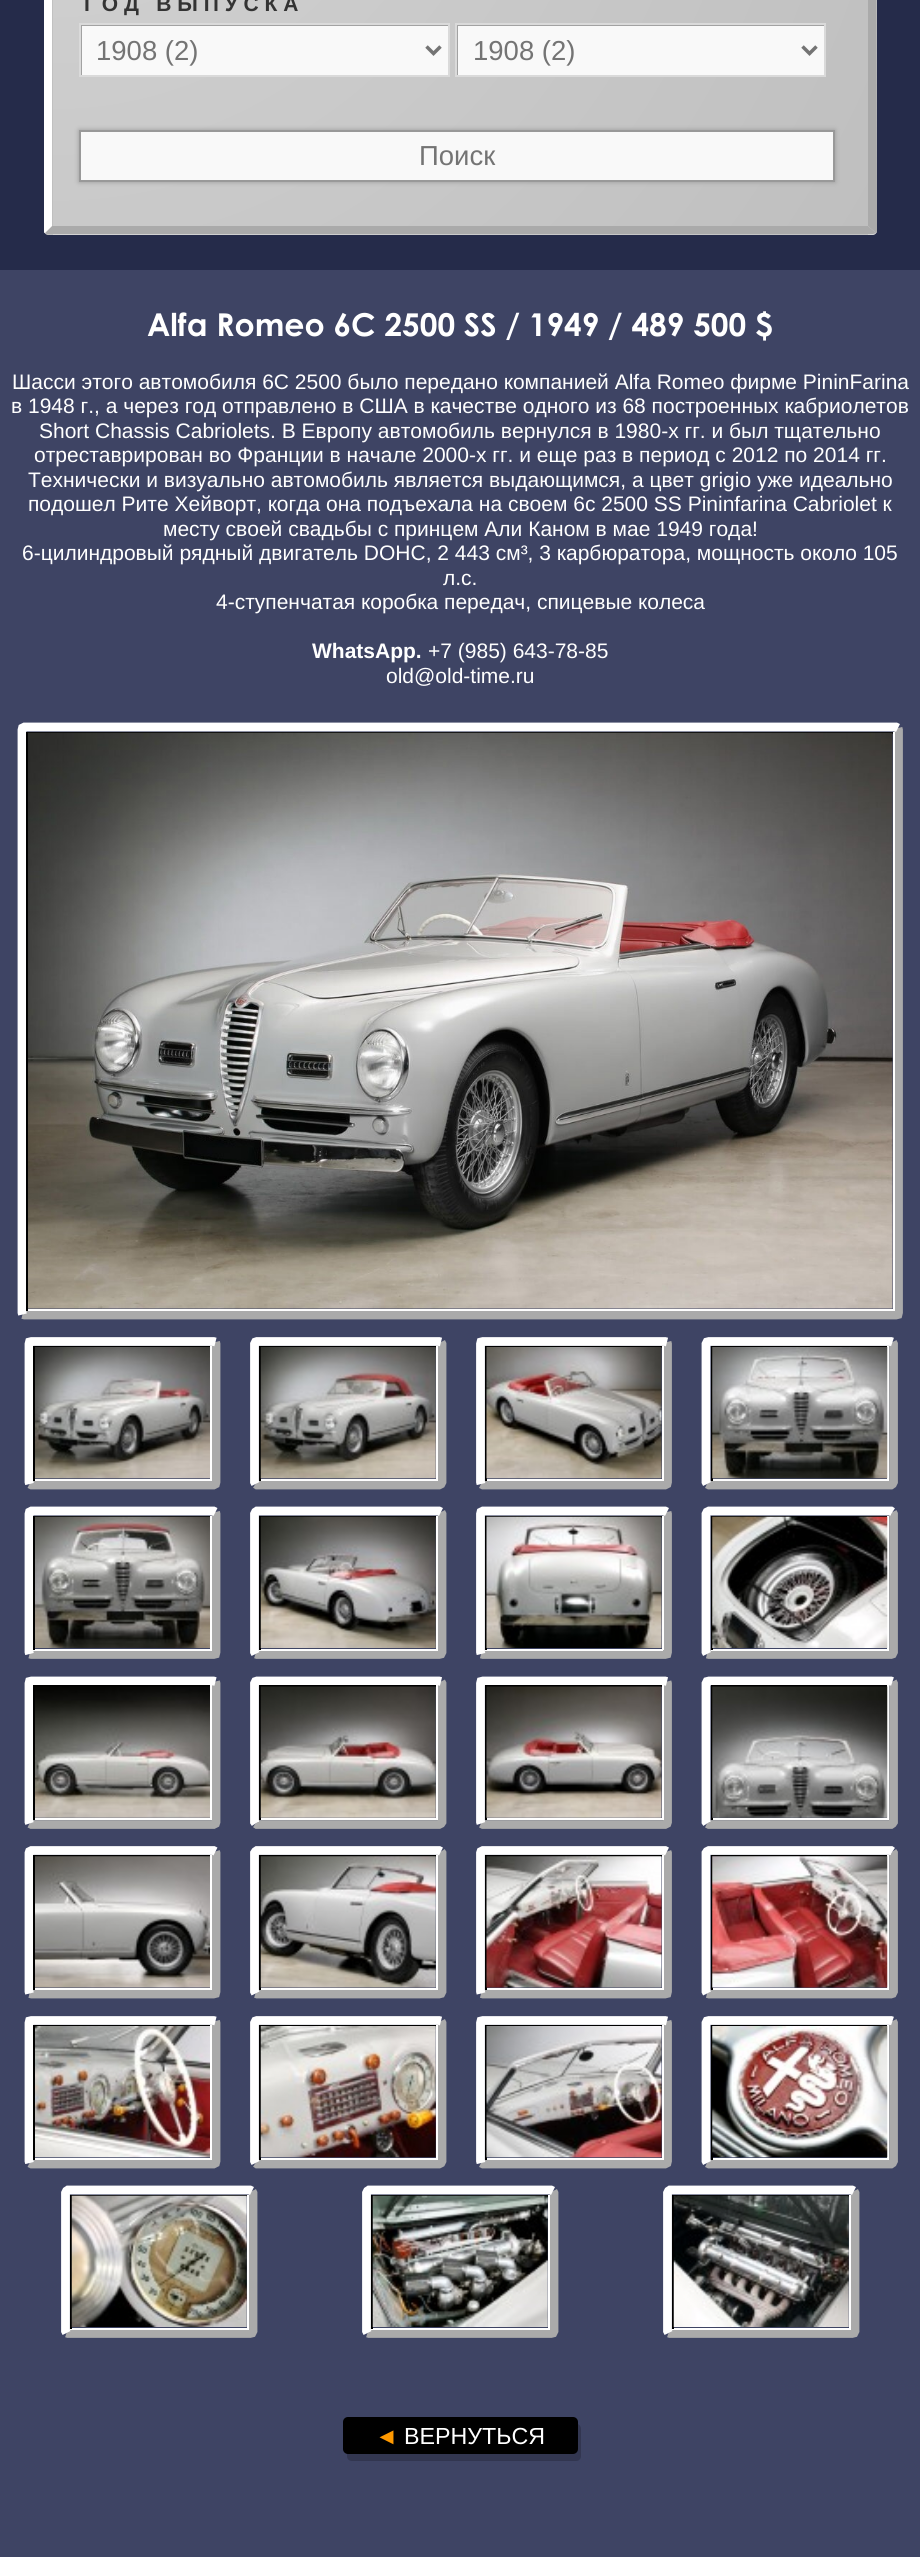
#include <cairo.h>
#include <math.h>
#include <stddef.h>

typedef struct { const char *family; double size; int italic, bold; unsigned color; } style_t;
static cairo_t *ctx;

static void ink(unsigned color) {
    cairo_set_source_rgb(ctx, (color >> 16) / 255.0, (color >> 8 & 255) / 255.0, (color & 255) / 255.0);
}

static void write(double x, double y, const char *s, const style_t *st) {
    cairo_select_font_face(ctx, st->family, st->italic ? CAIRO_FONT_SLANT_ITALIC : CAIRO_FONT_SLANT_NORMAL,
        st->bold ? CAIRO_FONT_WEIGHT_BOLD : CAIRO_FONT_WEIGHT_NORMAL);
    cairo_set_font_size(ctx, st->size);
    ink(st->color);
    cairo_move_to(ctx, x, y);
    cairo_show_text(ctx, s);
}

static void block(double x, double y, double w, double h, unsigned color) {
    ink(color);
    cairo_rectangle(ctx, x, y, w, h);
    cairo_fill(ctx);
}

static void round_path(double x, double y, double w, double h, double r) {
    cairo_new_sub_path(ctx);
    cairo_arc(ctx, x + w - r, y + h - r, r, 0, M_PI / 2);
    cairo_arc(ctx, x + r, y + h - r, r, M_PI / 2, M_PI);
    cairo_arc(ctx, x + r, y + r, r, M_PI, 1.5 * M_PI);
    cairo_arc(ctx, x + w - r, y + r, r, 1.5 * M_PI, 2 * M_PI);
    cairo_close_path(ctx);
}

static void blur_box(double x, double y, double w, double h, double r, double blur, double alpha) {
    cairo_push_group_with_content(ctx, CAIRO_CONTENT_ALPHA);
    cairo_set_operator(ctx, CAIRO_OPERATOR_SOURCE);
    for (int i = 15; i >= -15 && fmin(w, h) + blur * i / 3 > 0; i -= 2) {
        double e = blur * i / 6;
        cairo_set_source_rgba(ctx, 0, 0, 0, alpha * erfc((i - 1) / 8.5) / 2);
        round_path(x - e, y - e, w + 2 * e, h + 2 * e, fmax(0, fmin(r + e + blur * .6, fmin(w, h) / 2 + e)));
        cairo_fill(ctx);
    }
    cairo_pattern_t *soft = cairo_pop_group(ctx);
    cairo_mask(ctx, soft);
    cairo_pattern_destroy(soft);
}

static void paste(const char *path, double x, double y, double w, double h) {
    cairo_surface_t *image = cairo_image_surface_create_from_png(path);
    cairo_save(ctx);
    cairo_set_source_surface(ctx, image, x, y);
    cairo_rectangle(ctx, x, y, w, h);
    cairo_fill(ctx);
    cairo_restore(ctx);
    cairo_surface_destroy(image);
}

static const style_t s1 = {"Liberation Sans", 21, 0, 1, 0x333333};
static const style_t s2 = {"Liberation Sans", 27.5, 0, 0, 0x747474};
static const style_t s3 = {"Century Gothic", 31.5, 0, 1, 0xffffff};
static const style_t s4 = {"Liberation Sans", 21, 0, 0, 0xffffff};
static const style_t s5 = {"Liberation Sans", 21, 0, 1, 0xffffff};
static const style_t s6 = {"Liberation Sans", 23.25, 0, 0, 0xff9900};
static const style_t s7 = {"Liberation Sans", 23.25, 0, 0, 0xffffff};

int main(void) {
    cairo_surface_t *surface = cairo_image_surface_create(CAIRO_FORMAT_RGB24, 920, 2557);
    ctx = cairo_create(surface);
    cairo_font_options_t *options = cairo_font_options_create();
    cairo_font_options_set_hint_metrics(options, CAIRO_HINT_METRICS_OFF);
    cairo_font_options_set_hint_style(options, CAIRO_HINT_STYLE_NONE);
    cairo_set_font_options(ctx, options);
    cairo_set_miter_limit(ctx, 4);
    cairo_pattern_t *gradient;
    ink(0x3e4464);
    cairo_paint(ctx);
    block(0, 0, 920, 270, 0x252b4a);
    gradient = cairo_pattern_create_radial(-763, -276, 0, -763, -276, 958);
    cairo_pattern_add_color_stop_rgba(gradient, 0, 0.831, 0.831, 0.831, 1);
    cairo_pattern_add_color_stop_rgba(gradient, 1, 0.749, 0.749, 0.749, 1);
    cairo_set_source(ctx, gradient);
    cairo_pattern_destroy(gradient);
    cairo_rectangle(ctx, 52, 0, 1, 226);
    cairo_fill(ctx);
    gradient = cairo_pattern_create_radial(53, -276, 0, 53, -276, 958);
    cairo_pattern_add_color_stop_rgba(gradient, 0, 0.831, 0.831, 0.831, 1);
    cairo_pattern_add_color_stop_rgba(gradient, 1, 0.749, 0.749, 0.749, 1);
    cairo_set_source(ctx, gradient);
    cairo_pattern_destroy(gradient);
    cairo_rectangle(ctx, 53, 0, 815, 226);
    cairo_fill(ctx);
    gradient = cairo_pattern_create_radial(868, -276, 0, 868, -276, 958);
    cairo_pattern_add_color_stop_rgba(gradient, 0, 0.831, 0.831, 0.831, 1);
    cairo_pattern_add_color_stop_rgba(gradient, 1, 0.749, 0.749, 0.749, 1);
    cairo_set_source(ctx, gradient);
    cairo_pattern_destroy(gradient);
    cairo_rectangle(ctx, 876, 0, 1, 226);
    cairo_fill(ctx);
    gradient = cairo_pattern_create_radial(-763, 226, 0, -763, 226, 958);
    cairo_pattern_add_color_stop_rgba(gradient, 0, 0.831, 0.831, 0.831, 1);
    cairo_pattern_add_color_stop_rgba(gradient, 1, 0.749, 0.749, 0.749, 1);
    cairo_set_source(ctx, gradient);
    cairo_pattern_destroy(gradient);
    cairo_new_path(ctx);
    cairo_move_to(ctx, 44, 226);
    cairo_line_to(ctx, 53, 226);
    cairo_line_to(ctx, 53, 235);
    cairo_line_to(ctx, 48, 235);
    cairo_curve_to(ctx, 46, 235, 44, 233, 44, 231);
    cairo_close_path(ctx);
    cairo_fill(ctx);
    gradient = cairo_pattern_create_radial(53, 226, 0, 53, 226, 958);
    cairo_pattern_add_color_stop_rgba(gradient, 0, 0.831, 0.831, 0.831, 1);
    cairo_pattern_add_color_stop_rgba(gradient, 1, 0.749, 0.749, 0.749, 1);
    cairo_set_source(ctx, gradient);
    cairo_pattern_destroy(gradient);
    cairo_rectangle(ctx, 53, 234, 815, 1);
    cairo_fill(ctx);
    gradient = cairo_pattern_create_radial(868, 226, 0, 868, 226, 958);
    cairo_pattern_add_color_stop_rgba(gradient, 0, 0.831, 0.831, 0.831, 1);
    cairo_pattern_add_color_stop_rgba(gradient, 1, 0.749, 0.749, 0.749, 1);
    cairo_set_source(ctx, gradient);
    cairo_pattern_destroy(gradient);
    cairo_new_path(ctx);
    cairo_move_to(ctx, 868, 226);
    cairo_line_to(ctx, 877, 226);
    cairo_line_to(ctx, 877, 231);
    cairo_curve_to(ctx, 877, 233, 875, 235, 873, 235);
    cairo_line_to(ctx, 868, 235);
    cairo_close_path(ctx);
    cairo_fill(ctx);
    ink(0xaaaaaa);
    cairo_new_path(ctx);
    cairo_move_to(ctx, 876, -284);
    cairo_line_to(ctx, 877, 232);
    cairo_line_to(ctx, 876, 233);
    cairo_line_to(ctx, 868, 226);
    cairo_line_to(ctx, 868, -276);
    cairo_close_path(ctx);
    cairo_fill(ctx);
    cairo_new_path(ctx);
    cairo_move_to(ctx, 876, 233);
    cairo_line_to(ctx, 873, 234);
    cairo_line_to(ctx, 47, 234);
    cairo_line_to(ctx, 45, 233);
    cairo_line_to(ctx, 52, 226);
    cairo_line_to(ctx, 868, 226);
    cairo_close_path(ctx);
    cairo_fill(ctx);
    ink(0xffffff);
    cairo_new_path(ctx);
    cairo_move_to(ctx, 52, -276);
    cairo_line_to(ctx, 53, -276);
    cairo_line_to(ctx, 45, -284);
    cairo_line_to(ctx, 44, -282);
    cairo_line_to(ctx, 44, 231);
    cairo_curve_to(ctx, 44, 232, 44, 233, 45, 233);
    cairo_line_to(ctx, 52, 226);
    cairo_close_path(ctx);
    cairo_fill(ctx);
    write(84, 11, "Г О Д   В Ы П У С К А", &s1);
    block(82, 26, 366, 49, 0xf9f9f9);
    cairo_save(ctx);
    cairo_rectangle(ctx, 81, 25, 367, 50);
    cairo_clip(ctx);
    ink(0xa2a2a2);
    cairo_set_fill_rule(ctx, CAIRO_FILL_RULE_EVEN_ODD);
    cairo_new_path(ctx);
    cairo_move_to(ctx, -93, -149);
    cairo_line_to(ctx, 621, -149);
    cairo_line_to(ctx, 621, 248);
    cairo_line_to(ctx, -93, 248);
    cairo_close_path(ctx);
    cairo_move_to(ctx, 82, 26);
    cairo_line_to(ctx, 450, 26);
    cairo_line_to(ctx, 450, 77);
    cairo_line_to(ctx, 82, 77);
    cairo_close_path(ctx);
    cairo_fill(ctx);
    cairo_restore(ctx);
    cairo_rectangle(ctx, 80, 24, 369, 52);
    ink(0xdadada);
    cairo_stroke(ctx);
    cairo_new_path(ctx);
    cairo_move_to(ctx, 426.5, 46.5);
    cairo_line_to(ctx, 433.5, 53.5);
    cairo_line_to(ctx, 440.5, 46.5);
    ink(0x747474);
    cairo_set_line_width(ctx, 3.5);
    cairo_stroke(ctx);
    write(96, 60, "1908 (2)", &s2);
    block(458, 26, 366, 49, 0xf9f9f9);
    cairo_save(ctx);
    cairo_rectangle(ctx, 457, 25, 367, 50);
    cairo_clip(ctx);
    ink(0xa2a2a2);
    cairo_set_fill_rule(ctx, CAIRO_FILL_RULE_EVEN_ODD);
    cairo_new_path(ctx);
    cairo_move_to(ctx, 284, -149);
    cairo_line_to(ctx, 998, -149);
    cairo_line_to(ctx, 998, 248);
    cairo_line_to(ctx, 284, 248);
    cairo_close_path(ctx);
    cairo_move_to(ctx, 458, 26);
    cairo_line_to(ctx, 826, 26);
    cairo_line_to(ctx, 826, 77);
    cairo_line_to(ctx, 458, 77);
    cairo_close_path(ctx);
    cairo_fill(ctx);
    cairo_restore(ctx);
    cairo_rectangle(ctx, 456, 24, 369, 52);
    ink(0xdadada);
    cairo_set_line_width(ctx, 2);
    cairo_stroke(ctx);
    cairo_new_path(ctx);
    cairo_move_to(ctx, 802.5, 46.5);
    cairo_line_to(ctx, 809.5, 53.5);
    cairo_line_to(ctx, 816.5, 46.5);
    ink(0x747474);
    cairo_set_line_width(ctx, 3.5);
    cairo_stroke(ctx);
    write(473, 60, "1908 (2)", &s2);
    ink(0x999999);
    blur_box(79, 130, 756, 52, 0, 2.5, 1);
    ink(0xf9f9f9);
    cairo_rectangle(ctx, 80, 131, 754, 50);
    cairo_fill_preserve(ctx);
    ink(0x999999);
    cairo_set_line_width(ctx, 2);
    cairo_stroke(ctx);
    write(419, 165, "Поиск", &s2);
    write(147, 336, "Alfa Romeo 6C 2500 SS / 1949 / 489 500 $", &s3);
    write(12, 389, "Шасси этого автомобиля 6C 2500 было передано компанией Alfa Romeo фирме PininFarina", &s4);
    write(11, 413, "в 1948 г., а через год отправлено в США в качестве одного из 68 построенных кабриолетов", &s4);
    write(39, 438, "Short Chassis Cabriolets. В Европу автомобиль вернулся в 1980-х гг. и был тщательно", &s4);
    write(34, 462, "отреставрирован во Франции в начале 2000-х гг. и еще раз в период с 2012 по 2014 гг.", &s4);
    write(28, 487, "Технически и визуально автомобиль является выдающимся, а цвет grigio уже идеально", &s4);
    write(28, 511, "подошел Рите Хейворт, когда она подъехала на своем 6c 2500 SS Pininfarina Cabriolet к", &s4);
    write(163, 536, "месту своей свадьбы с принцем Али Каном в мае 1949 года!", &s4);
    write(22, 560, "6-цилиндровый рядный двигатель DOHC, 2 443 см³, 3 карбюратора, мощность около 105", &s4);
    write(443, 585, "л.с.", &s4);
    write(216, 609, "4-ступенчатая коробка передач, спицевые колеса", &s4);
    write(312, 658, "WhatsApp.", &s5);
    write(428, 658, "+7 (985) 643-78-85", &s4);
    write(386, 683, "old@old-time.ru", &s4);
    cairo_new_path(ctx);
    cairo_move_to(ctx, 898, 728);
    cairo_line_to(ctx, 898.5, 730);
    cairo_line_to(ctx, 898.5, 1312.5);
    cairo_line_to(ctx, 898, 1314.5);
    cairo_line_to(ctx, 896, 1315);
    cairo_line_to(ctx, 24.5, 1315);
    cairo_line_to(ctx, 22.5, 1314.5);
    ink(0xaaaaaa);
    cairo_set_line_width(ctx, 8.8);
    cairo_stroke(ctx);
    cairo_new_path(ctx);
    cairo_move_to(ctx, 22.5, 1314.5);
    cairo_line_to(ctx, 22, 1312.5);
    cairo_line_to(ctx, 22, 730);
    cairo_line_to(ctx, 22.5, 728);
    cairo_line_to(ctx, 24.5, 727);
    cairo_line_to(ctx, 896, 727);
    cairo_line_to(ctx, 898, 728);
    ink(0xffffff);
    cairo_stroke(ctx);
    block(26, 732, 868, 2, 0x000000);
    block(893, 732, 2, 579, 0xffffff);
    block(26, 1309, 868, 2, 0xffffff);
    block(26, 732, 2, 579, 0x000000);
    paste("pic1.png", 28, 732, 865, 577);
    cairo_new_path(ctx);
    cairo_move_to(ctx, 215.5, 1342);
    cairo_line_to(ctx, 216, 1344);
    cairo_line_to(ctx, 216, 1482);
    cairo_line_to(ctx, 215.5, 1484);
    cairo_line_to(ctx, 213.5, 1485);
    cairo_line_to(ctx, 31.5, 1485);
    cairo_line_to(ctx, 29.5, 1484);
    ink(0xaaaaaa);
    cairo_stroke(ctx);
    cairo_new_path(ctx);
    cairo_move_to(ctx, 29.5, 1484);
    cairo_line_to(ctx, 29, 1482);
    cairo_line_to(ctx, 29, 1344);
    cairo_line_to(ctx, 29.5, 1342);
    cairo_line_to(ctx, 31.5, 1341.5);
    cairo_line_to(ctx, 213.5, 1341.5);
    cairo_line_to(ctx, 215.5, 1342);
    ink(0xffffff);
    cairo_stroke(ctx);
    block(33, 1346, 179, 1, 0x000000);
    block(210, 1346, 2, 135, 0xffffff);
    block(33, 1479, 179, 2, 0xffffff);
    block(33, 1346, 2, 135, 0x000000);
    paste("pic2.png", 35, 1347, 175, 132);
    cairo_new_path(ctx);
    cairo_move_to(ctx, 441, 1342);
    cairo_line_to(ctx, 442, 1344);
    cairo_line_to(ctx, 442, 1482);
    cairo_line_to(ctx, 441, 1484);
    cairo_line_to(ctx, 439, 1485);
    cairo_line_to(ctx, 257, 1485);
    cairo_line_to(ctx, 255.5, 1484);
    ink(0xaaaaaa);
    cairo_stroke(ctx);
    cairo_new_path(ctx);
    cairo_move_to(ctx, 255.5, 1484);
    cairo_line_to(ctx, 254.5, 1482);
    cairo_line_to(ctx, 254.5, 1344);
    cairo_line_to(ctx, 255.5, 1342);
    cairo_line_to(ctx, 257, 1341.5);
    cairo_line_to(ctx, 439, 1341.5);
    cairo_line_to(ctx, 441, 1342);
    ink(0xffffff);
    cairo_stroke(ctx);
    block(259, 1346, 179, 2, 0x000000);
    block(436, 1346, 2, 135, 0xffffff);
    block(259, 1479, 179, 2, 0xffffff);
    block(259, 1346, 2, 135, 0x000000);
    paste("pic3.png", 260, 1347, 176, 132);
    cairo_save(ctx);
    cairo_rectangle(ctx, 485, 1346, 178, 135);
    cairo_clip(ctx);
    cairo_set_fill_rule(ctx, CAIRO_FILL_RULE_EVEN_ODD);
    cairo_new_path(ctx);
    cairo_move_to(ctx, 312, 1172);
    cairo_line_to(ctx, 836, 1172);
    cairo_line_to(ctx, 836, 1654);
    cairo_line_to(ctx, 312, 1654);
    cairo_close_path(ctx);
    cairo_move_to(ctx, 486, 1348);
    cairo_line_to(ctx, 665, 1348);
    cairo_line_to(ctx, 665, 1482);
    cairo_line_to(ctx, 486, 1482);
    cairo_close_path(ctx);
    cairo_fill(ctx);
    cairo_restore(ctx);
    cairo_new_path(ctx);
    cairo_move_to(ctx, 667, 1342);
    cairo_line_to(ctx, 667.5, 1344);
    cairo_line_to(ctx, 667.5, 1482);
    cairo_line_to(ctx, 667, 1484);
    cairo_line_to(ctx, 665, 1485);
    cairo_line_to(ctx, 483, 1485);
    cairo_line_to(ctx, 481, 1484);
    ink(0xaaaaaa);
    cairo_stroke(ctx);
    cairo_new_path(ctx);
    cairo_move_to(ctx, 481, 1484);
    cairo_line_to(ctx, 480.5, 1482);
    cairo_line_to(ctx, 480.5, 1344);
    cairo_line_to(ctx, 481, 1342);
    cairo_line_to(ctx, 483, 1341.5);
    cairo_line_to(ctx, 665, 1341.5);
    cairo_line_to(ctx, 667, 1342);
    ink(0xffffff);
    cairo_stroke(ctx);
    block(662, 1346, 2, 135, 0xffffff);
    block(485, 1479, 178, 2, 0xffffff);
    block(485, 1346, 2, 135, 0x000000);
    paste("pic4.png", 486, 1347, 176, 132);
    cairo_save(ctx);
    cairo_rectangle(ctx, 711, 1346, 178, 135);
    cairo_clip(ctx);
    cairo_set_fill_rule(ctx, CAIRO_FILL_RULE_EVEN_ODD);
    cairo_new_path(ctx);
    cairo_move_to(ctx, 537, 1172);
    cairo_line_to(ctx, 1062, 1172);
    cairo_line_to(ctx, 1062, 1654);
    cairo_line_to(ctx, 537, 1654);
    cairo_close_path(ctx);
    cairo_move_to(ctx, 712, 1348);
    cairo_line_to(ctx, 891, 1348);
    cairo_line_to(ctx, 891, 1482);
    cairo_line_to(ctx, 712, 1482);
    cairo_close_path(ctx);
    cairo_fill(ctx);
    cairo_restore(ctx);
    cairo_new_path(ctx);
    cairo_move_to(ctx, 892.5, 1342);
    cairo_line_to(ctx, 893.5, 1344);
    cairo_line_to(ctx, 893.5, 1482);
    cairo_line_to(ctx, 892.5, 1484);
    cairo_line_to(ctx, 891, 1485);
    cairo_line_to(ctx, 709, 1485);
    cairo_line_to(ctx, 707, 1484);
    ink(0xaaaaaa);
    cairo_stroke(ctx);
    cairo_new_path(ctx);
    cairo_move_to(ctx, 707, 1484);
    cairo_line_to(ctx, 706, 1482);
    cairo_line_to(ctx, 706, 1344);
    cairo_line_to(ctx, 707, 1342);
    cairo_line_to(ctx, 709, 1341.5);
    cairo_line_to(ctx, 891, 1341.5);
    cairo_line_to(ctx, 892.5, 1342);
    ink(0xffffff);
    cairo_stroke(ctx);
    block(887, 1346, 2, 135, 0xffffff);
    block(711, 1479, 178, 2, 0xffffff);
    block(711, 1346, 2, 135, 0x000000);
    paste("pic5.png", 712, 1347, 176, 132);
    cairo_new_path(ctx);
    cairo_move_to(ctx, 215.5, 1512);
    cairo_line_to(ctx, 216, 1514);
    cairo_line_to(ctx, 216, 1652);
    cairo_line_to(ctx, 215.5, 1654);
    cairo_line_to(ctx, 213.5, 1654.5);
    cairo_line_to(ctx, 31.5, 1654.5);
    cairo_line_to(ctx, 29.5, 1654);
    ink(0xaaaaaa);
    cairo_stroke(ctx);
    cairo_new_path(ctx);
    cairo_move_to(ctx, 29.5, 1654);
    cairo_line_to(ctx, 29, 1652);
    cairo_line_to(ctx, 29, 1514);
    cairo_line_to(ctx, 29.5, 1512);
    cairo_line_to(ctx, 31.5, 1511);
    cairo_line_to(ctx, 213.5, 1511);
    cairo_line_to(ctx, 215.5, 1512);
    ink(0xffffff);
    cairo_stroke(ctx);
    block(33, 1516, 179, 1, 0x000000);
    block(210, 1516, 2, 134, 0xffffff);
    block(33, 1649, 179, 2, 0xffffff);
    block(33, 1516, 2, 134, 0x000000);
    paste("pic6.png", 35, 1516, 175, 132);
    cairo_new_path(ctx);
    cairo_move_to(ctx, 441, 1512);
    cairo_line_to(ctx, 442, 1514);
    cairo_line_to(ctx, 442, 1652);
    cairo_line_to(ctx, 441, 1654);
    cairo_line_to(ctx, 439, 1654.5);
    cairo_line_to(ctx, 257, 1654.5);
    cairo_line_to(ctx, 255.5, 1654);
    ink(0xaaaaaa);
    cairo_stroke(ctx);
    cairo_new_path(ctx);
    cairo_move_to(ctx, 255.5, 1654);
    cairo_line_to(ctx, 254.5, 1652);
    cairo_line_to(ctx, 254.5, 1514);
    cairo_line_to(ctx, 255.5, 1512);
    cairo_line_to(ctx, 257, 1511);
    cairo_line_to(ctx, 439, 1511);
    cairo_line_to(ctx, 441, 1512);
    ink(0xffffff);
    cairo_stroke(ctx);
    block(259, 1516, 179, 2, 0x000000);
    block(436, 1516, 2, 134, 0xffffff);
    block(259, 1649, 179, 2, 0xffffff);
    block(259, 1516, 2, 134, 0x000000);
    paste("pic7.png", 260, 1516, 176, 132);
    cairo_new_path(ctx);
    cairo_move_to(ctx, 667, 1512);
    cairo_line_to(ctx, 667.5, 1514);
    cairo_line_to(ctx, 667.5, 1652);
    cairo_line_to(ctx, 667, 1654);
    cairo_line_to(ctx, 665, 1654.5);
    cairo_line_to(ctx, 483, 1654.5);
    cairo_line_to(ctx, 481, 1654);
    ink(0xaaaaaa);
    cairo_stroke(ctx);
    cairo_new_path(ctx);
    cairo_move_to(ctx, 481, 1654);
    cairo_line_to(ctx, 480.5, 1652);
    cairo_line_to(ctx, 480.5, 1514);
    cairo_line_to(ctx, 481, 1512);
    cairo_line_to(ctx, 483, 1511);
    cairo_line_to(ctx, 665, 1511);
    cairo_line_to(ctx, 667, 1512);
    ink(0xffffff);
    cairo_stroke(ctx);
    block(485, 1516, 178, 2, 0x000000);
    block(662, 1516, 2, 134, 0xffffff);
    block(485, 1649, 178, 2, 0xffffff);
    block(485, 1516, 2, 134, 0x000000);
    paste("pic8.png", 486, 1516, 176, 132);
    cairo_new_path(ctx);
    cairo_move_to(ctx, 892.5, 1512);
    cairo_line_to(ctx, 893.5, 1514);
    cairo_line_to(ctx, 893.5, 1652);
    cairo_line_to(ctx, 892.5, 1654);
    cairo_line_to(ctx, 891, 1654.5);
    cairo_line_to(ctx, 709, 1654.5);
    cairo_line_to(ctx, 707, 1654);
    ink(0xaaaaaa);
    cairo_stroke(ctx);
    cairo_new_path(ctx);
    cairo_move_to(ctx, 707, 1654);
    cairo_line_to(ctx, 706, 1652);
    cairo_line_to(ctx, 706, 1514);
    cairo_line_to(ctx, 707, 1512);
    cairo_line_to(ctx, 709, 1511);
    cairo_line_to(ctx, 891, 1511);
    cairo_line_to(ctx, 892.5, 1512);
    ink(0xffffff);
    cairo_stroke(ctx);
    block(711, 1516, 178, 1, 0x000000);
    block(887, 1516, 2, 134, 0xffffff);
    block(711, 1649, 178, 2, 0xffffff);
    block(711, 1516, 2, 134, 0x000000);
    paste("pic9.png", 712, 1516, 176, 132);
    cairo_new_path(ctx);
    cairo_move_to(ctx, 215.5, 1681.5);
    cairo_line_to(ctx, 216, 1683.5);
    cairo_line_to(ctx, 216, 1822);
    cairo_line_to(ctx, 215.5, 1823.5);
    cairo_line_to(ctx, 213.5, 1824.5);
    cairo_line_to(ctx, 31.5, 1824.5);
    cairo_line_to(ctx, 29.5, 1823.5);
    ink(0xaaaaaa);
    cairo_stroke(ctx);
    cairo_new_path(ctx);
    cairo_move_to(ctx, 29.5, 1823.5);
    cairo_line_to(ctx, 29, 1822);
    cairo_line_to(ctx, 29, 1683.5);
    cairo_line_to(ctx, 29.5, 1681.5);
    cairo_line_to(ctx, 31.5, 1681);
    cairo_line_to(ctx, 213.5, 1681);
    cairo_line_to(ctx, 215.5, 1681.5);
    ink(0xffffff);
    cairo_stroke(ctx);
    block(33, 1685, 179, 2, 0x000000);
    block(210, 1685, 2, 135, 0xffffff);
    block(33, 1818, 179, 2, 0xffffff);
    block(33, 1685, 2, 135, 0x000000);
    paste("pic10.png", 35, 1686, 175, 132);
    cairo_new_path(ctx);
    cairo_move_to(ctx, 441, 1681.5);
    cairo_line_to(ctx, 442, 1683.5);
    cairo_line_to(ctx, 442, 1822);
    cairo_line_to(ctx, 441, 1823.5);
    cairo_line_to(ctx, 439, 1824.5);
    cairo_line_to(ctx, 257, 1824.5);
    cairo_line_to(ctx, 255.5, 1823.5);
    ink(0xaaaaaa);
    cairo_stroke(ctx);
    cairo_new_path(ctx);
    cairo_move_to(ctx, 255.5, 1823.5);
    cairo_line_to(ctx, 254.5, 1822);
    cairo_line_to(ctx, 254.5, 1683.5);
    cairo_line_to(ctx, 255.5, 1681.5);
    cairo_line_to(ctx, 257, 1681);
    cairo_line_to(ctx, 439, 1681);
    cairo_line_to(ctx, 441, 1681.5);
    ink(0xffffff);
    cairo_stroke(ctx);
    block(259, 1685, 179, 2, 0x000000);
    block(436, 1685, 2, 135, 0xffffff);
    block(259, 1818, 179, 2, 0xffffff);
    block(259, 1685, 2, 135, 0x000000);
    paste("pic11.png", 260, 1686, 176, 132);
    cairo_new_path(ctx);
    cairo_move_to(ctx, 667, 1681.5);
    cairo_line_to(ctx, 667.5, 1683.5);
    cairo_line_to(ctx, 667.5, 1822);
    cairo_line_to(ctx, 667, 1823.5);
    cairo_line_to(ctx, 665, 1824.5);
    cairo_line_to(ctx, 483, 1824.5);
    cairo_line_to(ctx, 481, 1823.5);
    ink(0xaaaaaa);
    cairo_stroke(ctx);
    cairo_new_path(ctx);
    cairo_move_to(ctx, 481, 1823.5);
    cairo_line_to(ctx, 480.5, 1822);
    cairo_line_to(ctx, 480.5, 1683.5);
    cairo_line_to(ctx, 481, 1681.5);
    cairo_line_to(ctx, 483, 1681);
    cairo_line_to(ctx, 665, 1681);
    cairo_line_to(ctx, 667, 1681.5);
    ink(0xffffff);
    cairo_stroke(ctx);
    block(485, 1685, 178, 2, 0x000000);
    block(662, 1685, 2, 135, 0xffffff);
    block(485, 1818, 178, 2, 0xffffff);
    block(485, 1685, 2, 135, 0x000000);
    paste("pic12.png", 486, 1686, 176, 132);
    cairo_new_path(ctx);
    cairo_move_to(ctx, 892.5, 1681.5);
    cairo_line_to(ctx, 893.5, 1683.5);
    cairo_line_to(ctx, 893.5, 1822);
    cairo_line_to(ctx, 892.5, 1823.5);
    cairo_line_to(ctx, 891, 1824.5);
    cairo_line_to(ctx, 709, 1824.5);
    cairo_line_to(ctx, 707, 1823.5);
    ink(0xaaaaaa);
    cairo_stroke(ctx);
    cairo_new_path(ctx);
    cairo_move_to(ctx, 707, 1823.5);
    cairo_line_to(ctx, 706, 1822);
    cairo_line_to(ctx, 706, 1683.5);
    cairo_line_to(ctx, 707, 1681.5);
    cairo_line_to(ctx, 709, 1681);
    cairo_line_to(ctx, 891, 1681);
    cairo_line_to(ctx, 892.5, 1681.5);
    ink(0xffffff);
    cairo_stroke(ctx);
    block(711, 1685, 178, 2, 0x000000);
    block(887, 1685, 2, 135, 0xffffff);
    block(711, 1818, 178, 2, 0xffffff);
    block(711, 1685, 2, 135, 0x000000);
    paste("pic13.png", 712, 1686, 176, 132);
    cairo_new_path(ctx);
    cairo_move_to(ctx, 215.5, 1851.5);
    cairo_line_to(ctx, 216, 1853);
    cairo_line_to(ctx, 216, 1991.5);
    cairo_line_to(ctx, 215.5, 1993.5);
    cairo_line_to(ctx, 213.5, 1994);
    cairo_line_to(ctx, 31.5, 1994);
    cairo_line_to(ctx, 29.5, 1993.5);
    ink(0xaaaaaa);
    cairo_stroke(ctx);
    cairo_new_path(ctx);
    cairo_move_to(ctx, 29.5, 1993.5);
    cairo_line_to(ctx, 29, 1991.5);
    cairo_line_to(ctx, 29, 1853);
    cairo_line_to(ctx, 29.5, 1851.5);
    cairo_line_to(ctx, 31.5, 1850.5);
    cairo_line_to(ctx, 213.5, 1850.5);
    cairo_line_to(ctx, 215.5, 1851.5);
    ink(0xffffff);
    cairo_stroke(ctx);
    block(33, 1855, 179, 2, 0x000000);
    block(210, 1855, 2, 135, 0xffffff);
    block(33, 1988, 179, 2, 0xffffff);
    block(33, 1855, 2, 135, 0x000000);
    paste("pic14.png", 35, 1856, 175, 132);
    cairo_new_path(ctx);
    cairo_move_to(ctx, 441, 1851.5);
    cairo_line_to(ctx, 442, 1853);
    cairo_line_to(ctx, 442, 1991.5);
    cairo_line_to(ctx, 441, 1993.5);
    cairo_line_to(ctx, 439, 1994);
    cairo_line_to(ctx, 257, 1994);
    cairo_line_to(ctx, 255.5, 1993.5);
    ink(0xaaaaaa);
    cairo_stroke(ctx);
    cairo_new_path(ctx);
    cairo_move_to(ctx, 255.5, 1993.5);
    cairo_line_to(ctx, 254.5, 1991.5);
    cairo_line_to(ctx, 254.5, 1853);
    cairo_line_to(ctx, 255.5, 1851.5);
    cairo_line_to(ctx, 257, 1850.5);
    cairo_line_to(ctx, 439, 1850.5);
    cairo_line_to(ctx, 441, 1851.5);
    ink(0xffffff);
    cairo_stroke(ctx);
    block(259, 1855, 179, 2, 0x000000);
    block(436, 1855, 2, 135, 0xffffff);
    block(259, 1988, 179, 2, 0xffffff);
    block(259, 1855, 2, 135, 0x000000);
    paste("pic15.png", 260, 1856, 176, 132);
    cairo_save(ctx);
    cairo_rectangle(ctx, 485, 1855, 178, 135);
    cairo_clip(ctx);
    cairo_set_fill_rule(ctx, CAIRO_FILL_RULE_EVEN_ODD);
    cairo_new_path(ctx);
    cairo_move_to(ctx, 312, 1682);
    cairo_line_to(ctx, 836, 1682);
    cairo_line_to(ctx, 836, 2163);
    cairo_line_to(ctx, 312, 2163);
    cairo_close_path(ctx);
    cairo_move_to(ctx, 486, 1857);
    cairo_line_to(ctx, 665, 1857);
    cairo_line_to(ctx, 665, 1992);
    cairo_line_to(ctx, 486, 1992);
    cairo_close_path(ctx);
    cairo_fill(ctx);
    cairo_restore(ctx);
    cairo_new_path(ctx);
    cairo_move_to(ctx, 667, 1851.5);
    cairo_line_to(ctx, 667.5, 1853);
    cairo_line_to(ctx, 667.5, 1991.5);
    cairo_line_to(ctx, 667, 1993.5);
    cairo_line_to(ctx, 665, 1994);
    cairo_line_to(ctx, 483, 1994);
    cairo_line_to(ctx, 481, 1993.5);
    ink(0xaaaaaa);
    cairo_stroke(ctx);
    cairo_new_path(ctx);
    cairo_move_to(ctx, 481, 1993.5);
    cairo_line_to(ctx, 480.5, 1991.5);
    cairo_line_to(ctx, 480.5, 1853);
    cairo_line_to(ctx, 481, 1851.5);
    cairo_line_to(ctx, 483, 1850.5);
    cairo_line_to(ctx, 665, 1850.5);
    cairo_line_to(ctx, 667, 1851.5);
    ink(0xffffff);
    cairo_stroke(ctx);
    block(662, 1855, 2, 135, 0xffffff);
    block(485, 1988, 178, 2, 0xffffff);
    block(485, 1855, 2, 135, 0x000000);
    paste("pic16.png", 486, 1856, 176, 132);
    cairo_save(ctx);
    cairo_rectangle(ctx, 711, 1855, 178, 135);
    cairo_clip(ctx);
    cairo_set_fill_rule(ctx, CAIRO_FILL_RULE_EVEN_ODD);
    cairo_new_path(ctx);
    cairo_move_to(ctx, 537, 1682);
    cairo_line_to(ctx, 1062, 1682);
    cairo_line_to(ctx, 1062, 2163);
    cairo_line_to(ctx, 537, 2163);
    cairo_close_path(ctx);
    cairo_move_to(ctx, 712, 1857);
    cairo_line_to(ctx, 891, 1857);
    cairo_line_to(ctx, 891, 1992);
    cairo_line_to(ctx, 712, 1992);
    cairo_close_path(ctx);
    cairo_fill(ctx);
    cairo_restore(ctx);
    cairo_new_path(ctx);
    cairo_move_to(ctx, 892.5, 1851.5);
    cairo_line_to(ctx, 893.5, 1853);
    cairo_line_to(ctx, 893.5, 1991.5);
    cairo_line_to(ctx, 892.5, 1993.5);
    cairo_line_to(ctx, 891, 1994);
    cairo_line_to(ctx, 709, 1994);
    cairo_line_to(ctx, 707, 1993.5);
    ink(0xaaaaaa);
    cairo_stroke(ctx);
    cairo_new_path(ctx);
    cairo_move_to(ctx, 707, 1993.5);
    cairo_line_to(ctx, 706, 1991.5);
    cairo_line_to(ctx, 706, 1853);
    cairo_line_to(ctx, 707, 1851.5);
    cairo_line_to(ctx, 709, 1850.5);
    cairo_line_to(ctx, 891, 1850.5);
    cairo_line_to(ctx, 892.5, 1851.5);
    ink(0xffffff);
    cairo_stroke(ctx);
    block(887, 1855, 2, 135, 0xffffff);
    block(711, 1988, 178, 2, 0xffffff);
    block(711, 1855, 2, 135, 0x000000);
    paste("pic17.png", 712, 1856, 176, 132);
    cairo_new_path(ctx);
    cairo_move_to(ctx, 215.5, 2021);
    cairo_line_to(ctx, 216, 2023);
    cairo_line_to(ctx, 216, 2161);
    cairo_line_to(ctx, 215.5, 2163);
    cairo_line_to(ctx, 213.5, 2164);
    cairo_line_to(ctx, 31.5, 2164);
    cairo_line_to(ctx, 29.5, 2163);
    ink(0xaaaaaa);
    cairo_stroke(ctx);
    cairo_new_path(ctx);
    cairo_move_to(ctx, 29.5, 2163);
    cairo_line_to(ctx, 29, 2161);
    cairo_line_to(ctx, 29, 2023);
    cairo_line_to(ctx, 29.5, 2021);
    cairo_line_to(ctx, 31.5, 2020.5);
    cairo_line_to(ctx, 213.5, 2020.5);
    cairo_line_to(ctx, 215.5, 2021);
    ink(0xffffff);
    cairo_stroke(ctx);
    block(33, 2025, 179, 1, 0x000000);
    block(210, 2025, 2, 135, 0xffffff);
    block(33, 2158, 179, 2, 0xffffff);
    block(33, 2025, 2, 135, 0x000000);
    paste("pic18.png", 35, 2026, 175, 132);
    cairo_new_path(ctx);
    cairo_move_to(ctx, 441, 2021);
    cairo_line_to(ctx, 442, 2023);
    cairo_line_to(ctx, 442, 2161);
    cairo_line_to(ctx, 441, 2163);
    cairo_line_to(ctx, 439, 2164);
    cairo_line_to(ctx, 257, 2164);
    cairo_line_to(ctx, 255.5, 2163);
    ink(0xaaaaaa);
    cairo_stroke(ctx);
    cairo_new_path(ctx);
    cairo_move_to(ctx, 255.5, 2163);
    cairo_line_to(ctx, 254.5, 2161);
    cairo_line_to(ctx, 254.5, 2023);
    cairo_line_to(ctx, 255.5, 2021);
    cairo_line_to(ctx, 257, 2020.5);
    cairo_line_to(ctx, 439, 2020.5);
    cairo_line_to(ctx, 441, 2021);
    ink(0xffffff);
    cairo_stroke(ctx);
    block(259, 2025, 179, 2, 0x000000);
    block(436, 2025, 2, 135, 0xffffff);
    block(259, 2158, 179, 2, 0xffffff);
    block(259, 2025, 2, 135, 0x000000);
    paste("pic19.png", 260, 2026, 176, 132);
    cairo_new_path(ctx);
    cairo_move_to(ctx, 667, 2021);
    cairo_line_to(ctx, 667.5, 2023);
    cairo_line_to(ctx, 667.5, 2161);
    cairo_line_to(ctx, 667, 2163);
    cairo_line_to(ctx, 665, 2164);
    cairo_line_to(ctx, 483, 2164);
    cairo_line_to(ctx, 481, 2163);
    ink(0xaaaaaa);
    cairo_stroke(ctx);
    cairo_new_path(ctx);
    cairo_move_to(ctx, 481, 2163);
    cairo_line_to(ctx, 480.5, 2161);
    cairo_line_to(ctx, 480.5, 2023);
    cairo_line_to(ctx, 481, 2021);
    cairo_line_to(ctx, 483, 2020.5);
    cairo_line_to(ctx, 665, 2020.5);
    cairo_line_to(ctx, 667, 2021);
    ink(0xffffff);
    cairo_stroke(ctx);
    block(485, 2025, 178, 2, 0x000000);
    block(662, 2025, 2, 135, 0xffffff);
    block(485, 2158, 178, 2, 0xffffff);
    block(485, 2025, 2, 135, 0x000000);
    paste("pic20.png", 486, 2026, 176, 132);
    cairo_new_path(ctx);
    cairo_move_to(ctx, 892.5, 2021);
    cairo_line_to(ctx, 893.5, 2023);
    cairo_line_to(ctx, 893.5, 2161);
    cairo_line_to(ctx, 892.5, 2163);
    cairo_line_to(ctx, 891, 2164);
    cairo_line_to(ctx, 709, 2164);
    cairo_line_to(ctx, 707, 2163);
    ink(0xaaaaaa);
    cairo_stroke(ctx);
    cairo_new_path(ctx);
    cairo_move_to(ctx, 707, 2163);
    cairo_line_to(ctx, 706, 2161);
    cairo_line_to(ctx, 706, 2023);
    cairo_line_to(ctx, 707, 2021);
    cairo_line_to(ctx, 709, 2020.5);
    cairo_line_to(ctx, 891, 2020.5);
    cairo_line_to(ctx, 892.5, 2021);
    ink(0xffffff);
    cairo_stroke(ctx);
    block(711, 2025, 178, 1, 0x000000);
    block(887, 2025, 2, 135, 0xffffff);
    block(711, 2158, 178, 2, 0xffffff);
    block(711, 2025, 2, 135, 0x000000);
    paste("pic21.png", 712, 2026, 176, 132);
    cairo_new_path(ctx);
    cairo_move_to(ctx, 252, 2191);
    cairo_line_to(ctx, 253, 2193);
    cairo_line_to(ctx, 253, 2331);
    cairo_line_to(ctx, 252, 2333);
    cairo_line_to(ctx, 250, 2333.5);
    cairo_line_to(ctx, 68, 2333.5);
    cairo_line_to(ctx, 66.5, 2333);
    ink(0xaaaaaa);
    cairo_stroke(ctx);
    cairo_new_path(ctx);
    cairo_move_to(ctx, 66.5, 2333);
    cairo_line_to(ctx, 65.5, 2331);
    cairo_line_to(ctx, 65.5, 2193);
    cairo_line_to(ctx, 66.5, 2191);
    cairo_line_to(ctx, 68, 2190);
    cairo_line_to(ctx, 250, 2190);
    cairo_line_to(ctx, 252, 2191);
    ink(0xffffff);
    cairo_stroke(ctx);
    block(70, 2195, 179, 2, 0x000000);
    block(247, 2195, 2, 134, 0xffffff);
    block(70, 2328, 179, 2, 0xffffff);
    block(70, 2195, 2, 134, 0x000000);
    paste("pic22.png", 71, 2195, 176, 132);
    cairo_new_path(ctx);
    cairo_move_to(ctx, 553, 2191);
    cairo_line_to(ctx, 554, 2193);
    cairo_line_to(ctx, 554, 2331);
    cairo_line_to(ctx, 553, 2333);
    cairo_line_to(ctx, 551, 2333.5);
    cairo_line_to(ctx, 369, 2333.5);
    cairo_line_to(ctx, 367.5, 2333);
    ink(0xaaaaaa);
    cairo_stroke(ctx);
    cairo_new_path(ctx);
    cairo_move_to(ctx, 367.5, 2333);
    cairo_line_to(ctx, 366.5, 2331);
    cairo_line_to(ctx, 366.5, 2193);
    cairo_line_to(ctx, 367.5, 2191);
    cairo_line_to(ctx, 369, 2190);
    cairo_line_to(ctx, 551, 2190);
    cairo_line_to(ctx, 553, 2191);
    ink(0xffffff);
    cairo_stroke(ctx);
    block(371, 2195, 179, 2, 0x000000);
    block(548, 2195, 2, 134, 0xffffff);
    block(371, 2328, 179, 2, 0xffffff);
    block(371, 2195, 2, 134, 0x000000);
    paste("pic23.png", 372, 2195, 176, 132);
    cairo_new_path(ctx);
    cairo_move_to(ctx, 854, 2191);
    cairo_line_to(ctx, 855, 2193);
    cairo_line_to(ctx, 855, 2331);
    cairo_line_to(ctx, 854, 2333);
    cairo_line_to(ctx, 852, 2333.5);
    cairo_line_to(ctx, 670, 2333.5);
    cairo_line_to(ctx, 668.5, 2333);
    ink(0xaaaaaa);
    cairo_stroke(ctx);
    cairo_new_path(ctx);
    cairo_move_to(ctx, 668.5, 2333);
    cairo_line_to(ctx, 667.5, 2331);
    cairo_line_to(ctx, 667.5, 2193);
    cairo_line_to(ctx, 668.5, 2191);
    cairo_line_to(ctx, 670, 2190);
    cairo_line_to(ctx, 852, 2190);
    cairo_line_to(ctx, 854, 2191);
    ink(0xffffff);
    cairo_stroke(ctx);
    block(672, 2195, 179, 2, 0x000000);
    block(849, 2195, 2, 134, 0xffffff);
    block(672, 2328, 179, 2, 0xffffff);
    block(672, 2195, 2, 134, 0x000000);
    paste("pic24.png", 673, 2195, 176, 132);
    ink(0x323650);
    cairo_new_path(ctx);
    cairo_move_to(ctx, 347, 2453);
    cairo_line_to(ctx, 347, 2456);
    cairo_curve_to(ctx, 347, 2459, 349, 2461, 352, 2461);
    cairo_line_to(ctx, 576, 2461);
    cairo_curve_to(ctx, 579, 2461, 581, 2459, 581, 2456);
    cairo_line_to(ctx, 581, 2429);
    cairo_curve_to(ctx, 581, 2427, 580, 2425, 578, 2424);
    cairo_line_to(ctx, 578, 2440);
    cairo_curve_to(ctx, 578, 2444, 579, 2453, 572, 2454);
    cairo_close_path(ctx);
    cairo_fill(ctx);
    ink(0x000000);
    round_path(343, 2417, 235, 37, 5);
    cairo_fill(ctx);
    write(375, 2444, "◄", &s6);
    write(404, 2444, "ВЕРНУТЬСЯ", &s7);
    cairo_surface_write_to_png(surface, "screenshot.png");
    cairo_font_options_destroy(options);
    cairo_destroy(ctx);
    cairo_surface_destroy(surface);
    return 0;
}
